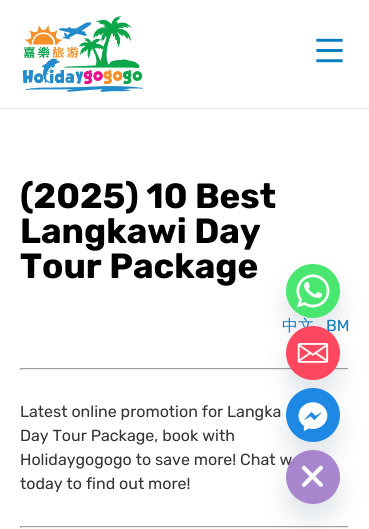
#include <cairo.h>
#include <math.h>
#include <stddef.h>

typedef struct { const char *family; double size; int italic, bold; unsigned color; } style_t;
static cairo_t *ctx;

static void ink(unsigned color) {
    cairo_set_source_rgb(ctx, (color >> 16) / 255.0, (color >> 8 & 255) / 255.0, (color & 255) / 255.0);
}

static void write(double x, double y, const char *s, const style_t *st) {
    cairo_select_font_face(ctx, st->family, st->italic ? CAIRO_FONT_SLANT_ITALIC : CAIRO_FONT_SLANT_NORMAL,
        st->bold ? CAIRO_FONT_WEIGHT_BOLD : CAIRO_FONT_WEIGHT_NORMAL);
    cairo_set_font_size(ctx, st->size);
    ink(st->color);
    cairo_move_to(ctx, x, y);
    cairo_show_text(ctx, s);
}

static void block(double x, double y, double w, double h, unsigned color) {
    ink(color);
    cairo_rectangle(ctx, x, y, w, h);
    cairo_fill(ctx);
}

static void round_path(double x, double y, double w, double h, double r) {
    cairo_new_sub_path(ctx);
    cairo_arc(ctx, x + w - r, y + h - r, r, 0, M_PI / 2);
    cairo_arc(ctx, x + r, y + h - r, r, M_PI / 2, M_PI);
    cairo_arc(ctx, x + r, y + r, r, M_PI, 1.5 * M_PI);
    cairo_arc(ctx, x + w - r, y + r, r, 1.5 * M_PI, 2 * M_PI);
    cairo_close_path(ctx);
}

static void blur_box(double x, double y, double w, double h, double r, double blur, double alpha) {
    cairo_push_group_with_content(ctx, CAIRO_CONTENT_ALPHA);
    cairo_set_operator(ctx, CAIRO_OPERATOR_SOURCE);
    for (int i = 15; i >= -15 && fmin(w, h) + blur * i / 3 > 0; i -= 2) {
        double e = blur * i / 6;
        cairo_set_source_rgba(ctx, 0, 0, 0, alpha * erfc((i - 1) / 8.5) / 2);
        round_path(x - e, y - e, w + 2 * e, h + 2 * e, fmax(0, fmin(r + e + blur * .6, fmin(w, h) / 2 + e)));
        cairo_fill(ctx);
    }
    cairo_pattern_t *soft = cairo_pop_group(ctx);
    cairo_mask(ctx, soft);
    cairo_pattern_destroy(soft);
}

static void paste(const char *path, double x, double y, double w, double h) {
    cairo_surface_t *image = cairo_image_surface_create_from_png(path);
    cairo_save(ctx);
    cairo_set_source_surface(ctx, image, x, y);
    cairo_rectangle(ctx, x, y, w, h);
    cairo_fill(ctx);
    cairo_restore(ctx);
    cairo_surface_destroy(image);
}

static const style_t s1 = {"Rubik", 35, 0, 1, 0x000000};
static const style_t s2 = {"WenQuanYi Zen Hei Medium", 16, 0, 0, 0x087dc2};
static const style_t s3 = {"Rubik", 16, 0, 0, 0x087dc2};
static const style_t s4 = {"Rubik", 16, 0, 0, 0x333333};

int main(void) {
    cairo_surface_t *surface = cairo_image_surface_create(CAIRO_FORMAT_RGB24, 369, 529);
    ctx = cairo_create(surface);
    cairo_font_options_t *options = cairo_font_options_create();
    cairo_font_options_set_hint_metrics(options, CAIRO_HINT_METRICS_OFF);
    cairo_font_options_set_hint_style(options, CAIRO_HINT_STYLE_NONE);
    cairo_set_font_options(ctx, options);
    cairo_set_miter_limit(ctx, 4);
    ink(0xffffff);
    cairo_paint(ctx);
    block(0, 108, 369, 1, 0xe8e8e8);
    paste("pic1.png", 22, 16, 121, 76);
    paste("pic2.png", 316, 38, 27, 25);
    write(20, 208, "(2025) 10 Best", &s1);
    write(20, 243, "Langkawi Day", &s1);
    write(20, 278, "Tour Package", &s1);
    write(282, 331, "中文", &s2);
    write(326, 331, "BM", &s3);
    block(20, 368, 329, 1, 0x9f9f9f);
    block(348, 368, 1, 2, 0xeeeeee);
    block(20, 369, 329, 1, 0xeeeeee);
    block(20, 368, 1, 2, 0x9f9f9f);
    write(20, 417, "Latest online promotion for Langka", &s4);
    write(20, 441, "Day Tour Package, book with", &s4);
    write(20, 465, "Holidaygogogo to save more! Chat w", &s4);
    write(20, 489, "today to find out more!", &s4);
    block(20, 526, 329, 1, 0x9f9f9f);
    block(348, 526, 1, 2, 0xeeeeee);
    block(20, 527, 329, 1, 0xeeeeee);
    block(20, 526, 1, 2, 0x9f9f9f);
    ink(0x49687e);
    blur_box(286, 280, 54, 54, 27, 12, 0.16);
    paste("pic3.png", 286, 264, 54, 54);
    blur_box(286, 342, 54, 54, 27, 12, 0.16);
    paste("pic4.png", 286, 326, 54, 54);
    blur_box(286, 404, 54, 54, 27, 12, 0.16);
    paste("pic5.png", 286, 388, 54, 54);
    blur_box(286, 466, 54, 54, 27, 12, 0.16);
    paste("pic6.png", 286, 450, 54, 54);
    cairo_surface_write_to_png(surface, "screenshot.png");
    cairo_font_options_destroy(options);
    cairo_destroy(ctx);
    cairo_surface_destroy(surface);
    return 0;
}
